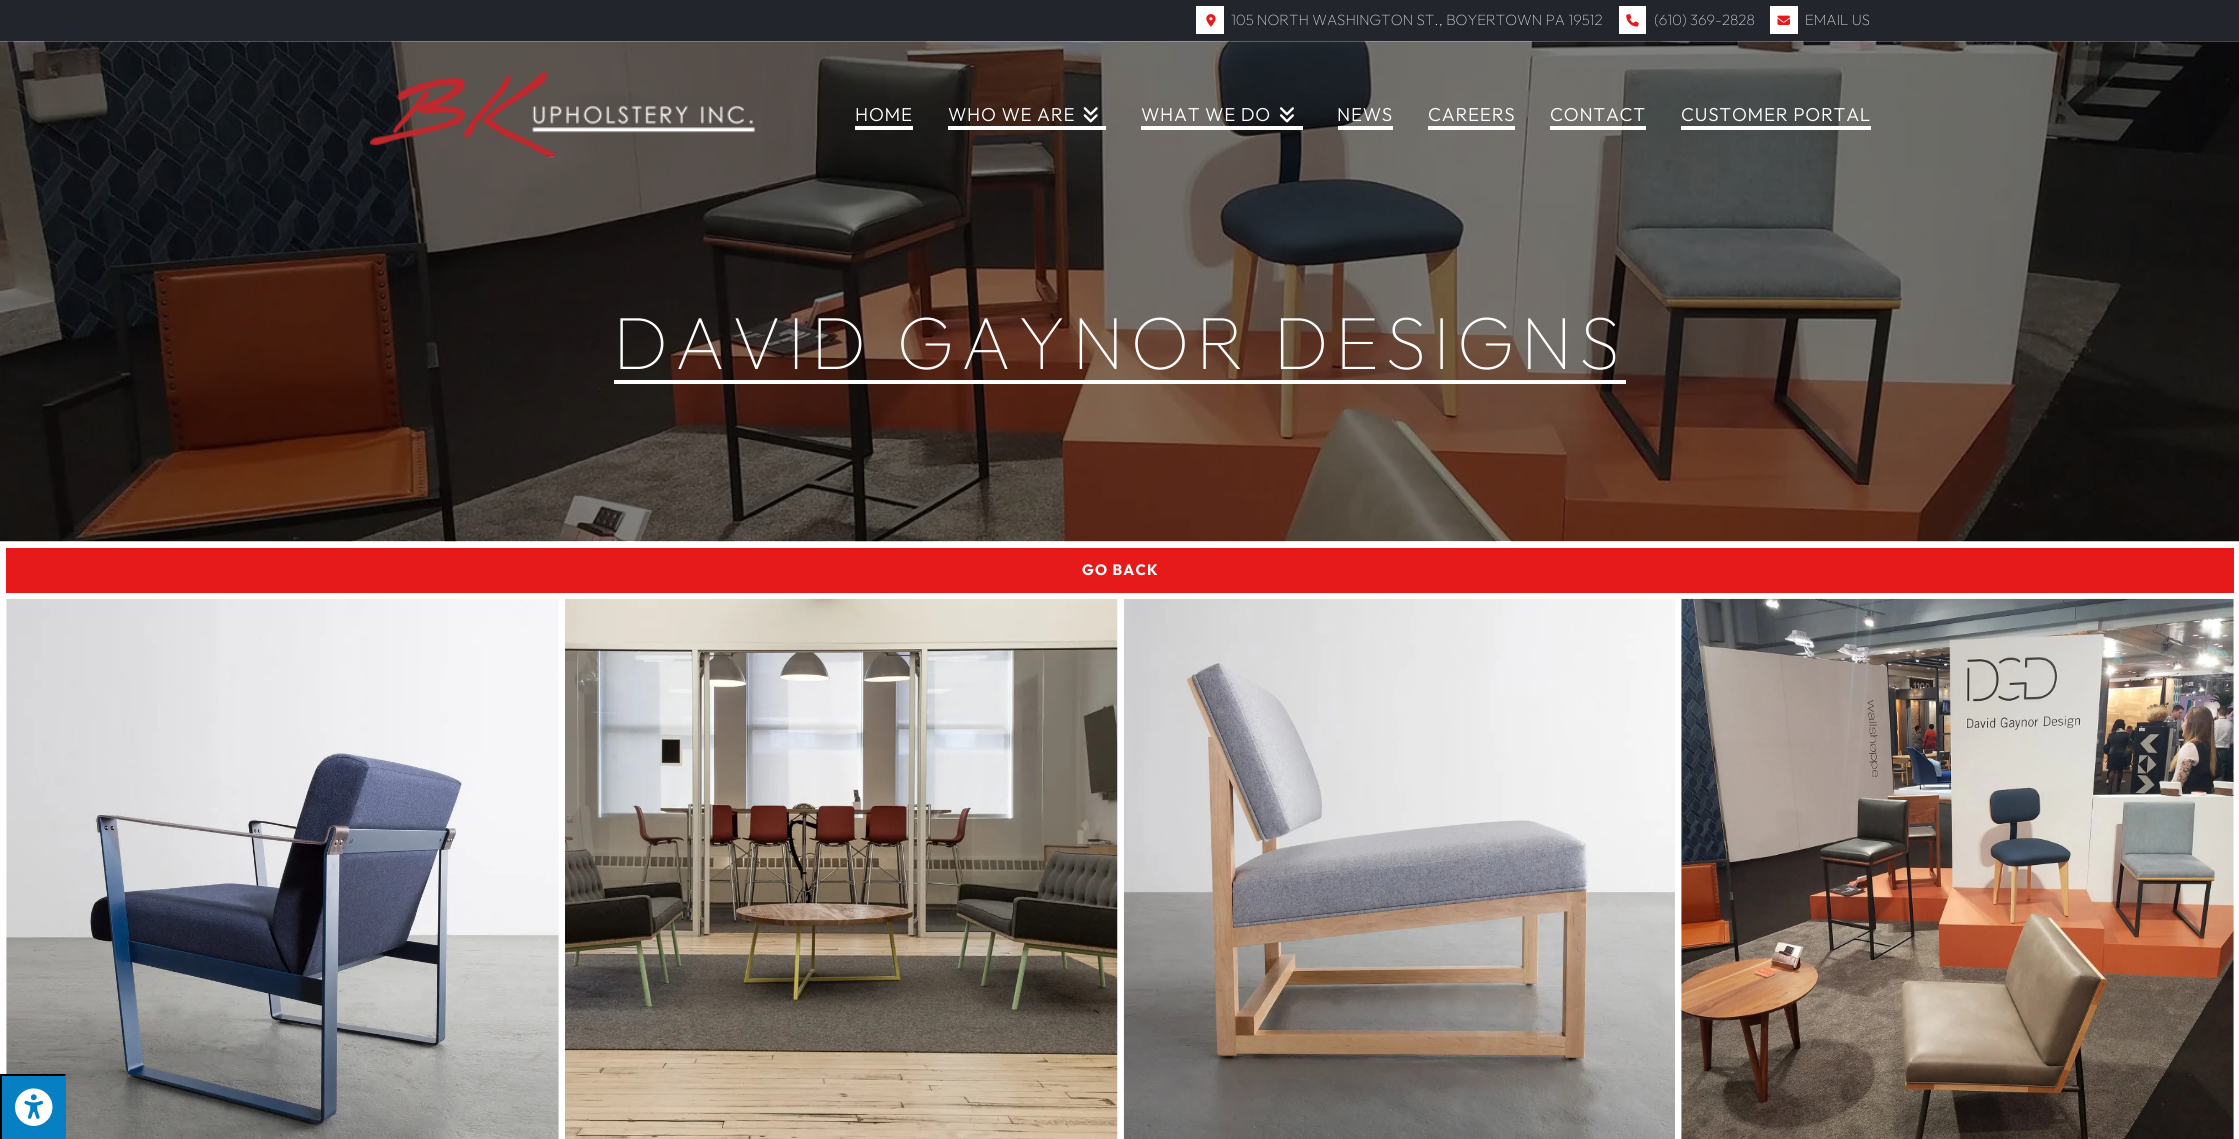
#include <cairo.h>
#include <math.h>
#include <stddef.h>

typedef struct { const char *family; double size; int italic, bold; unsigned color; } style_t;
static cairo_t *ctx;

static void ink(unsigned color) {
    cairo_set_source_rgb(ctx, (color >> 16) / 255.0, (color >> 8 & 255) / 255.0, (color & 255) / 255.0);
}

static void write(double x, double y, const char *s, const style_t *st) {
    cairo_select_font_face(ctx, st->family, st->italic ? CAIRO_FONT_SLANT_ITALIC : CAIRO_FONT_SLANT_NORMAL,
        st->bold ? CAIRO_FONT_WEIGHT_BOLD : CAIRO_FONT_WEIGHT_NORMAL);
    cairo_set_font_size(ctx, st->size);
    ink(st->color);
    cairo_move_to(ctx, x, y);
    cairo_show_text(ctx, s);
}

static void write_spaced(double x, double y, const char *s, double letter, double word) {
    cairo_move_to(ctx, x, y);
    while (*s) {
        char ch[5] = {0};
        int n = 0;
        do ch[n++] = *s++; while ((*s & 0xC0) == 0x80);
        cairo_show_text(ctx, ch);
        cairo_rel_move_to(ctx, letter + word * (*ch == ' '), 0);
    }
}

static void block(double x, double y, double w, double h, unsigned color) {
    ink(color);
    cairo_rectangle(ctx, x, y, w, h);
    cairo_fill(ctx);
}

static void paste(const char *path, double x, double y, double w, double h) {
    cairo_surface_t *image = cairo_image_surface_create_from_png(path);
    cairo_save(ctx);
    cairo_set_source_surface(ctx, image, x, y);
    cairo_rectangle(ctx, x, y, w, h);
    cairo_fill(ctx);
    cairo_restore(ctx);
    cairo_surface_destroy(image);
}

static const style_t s1 = {"Outfit Thin", 15, 0, 0, 0xffffff};

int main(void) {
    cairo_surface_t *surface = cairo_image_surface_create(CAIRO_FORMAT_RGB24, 2239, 1139);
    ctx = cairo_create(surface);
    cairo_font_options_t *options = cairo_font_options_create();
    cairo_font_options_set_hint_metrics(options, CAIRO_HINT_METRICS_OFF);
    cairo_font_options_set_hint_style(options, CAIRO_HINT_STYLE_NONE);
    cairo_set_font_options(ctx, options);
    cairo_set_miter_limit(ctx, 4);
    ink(0xffffff);
    cairo_paint(ctx);
    block(0, 0, 2239, 41, 0x22252b);
    block(1196, 6, 28, 28, 0xffffff);
    paste("pic1.png", 1206, 14, 10, 13);
    write(1231, 25, "105 NORTH WASHINGTON ST., BOYERTOWN PA 19512", &s1);
    block(1619, 6, 27, 28, 0xffffff);
    paste("pic2.png", 1626, 14, 13, 13);
    write(1654, 25, "(610) 369-2828", &s1);
    block(1770, 6, 28, 28, 0xffffff);
    paste("pic3.png", 1777, 15, 13, 10);
    write(1805, 25, "EMAIL US", &s1);
    paste("pic7.png", 0, 41, 2239, 501);
    paste("pic4.png", 370, 72, 386, 86);
    cairo_select_font_face(ctx, "Outfit Light", CAIRO_FONT_SLANT_NORMAL, CAIRO_FONT_WEIGHT_NORMAL);
    cairo_set_font_size(ctx, 18.75);
    write_spaced(855, 121, "HOME", 0.75, 0);
    block(855, 126, 58, 4, 0xffffff);
    write_spaced(948, 121, "WHO WE ARE", 0.75, 0);
    paste("pic5.png", 1083, 107, 15, 16);
    block(948, 126, 158, 4, 0xffffff);
    write_spaced(1141, 121, "WHAT WE DO", 0.75, 0);
    paste("pic6.png", 1279, 107, 15, 16);
    block(1141, 126, 162, 4, 0xffffff);
    write_spaced(1337, 121, "NEWS", 0.75, 0);
    block(1338, 126, 55, 4, 0xffffff);
    write_spaced(1428, 121, "CAREERS", 0.75, 0);
    block(1428, 126, 87, 4, 0xffffff);
    write_spaced(1550, 121, "CONTACT", 0.75, 0);
    block(1550, 126, 96, 4, 0xffffff);
    write_spaced(1681, 121, "CUSTOMER PORTAL", 0.75, 0);
    block(1681, 126, 190, 4, 0xffffff);
    block(614, 380, 1012, 4, 0xffffff);
    cairo_select_font_face(ctx, "Outfit Thin", CAIRO_FONT_SLANT_NORMAL, CAIRO_FONT_WEIGHT_NORMAL);
    cairo_set_font_size(ctx, 75);
    write_spaced(613, 369, "DAVID GAYNOR DESIGNS", 6.25, 0);
    block(6, 548, 2228, 45, 0xe61a1a);
    cairo_select_font_face(ctx, "Outfit", CAIRO_FONT_SLANT_NORMAL, CAIRO_FONT_WEIGHT_BOLD);
    cairo_set_font_size(ctx, 15);
    ink(0xffffff);
    write_spaced(1082, 575, "GO BACK", 1.25, 0);
    paste("pic8.png", 6, 599, 553, 540);
    paste("pic9.png", 565, 598, 553, 541);
    paste("pic10.png", 1123, 599, 552, 540);
    paste("pic11.png", 1681, 598, 553, 541);
    block(0, 1074, 66, 65, 0x0780c3);
    ink(0x000000);
    cairo_new_path(ctx);
    cairo_move_to(ctx, 0, 1074);
    cairo_line_to(ctx, 66, 1074);
    cairo_line_to(ctx, 65, 1076);
    cairo_line_to(ctx, 2, 1076);
    cairo_close_path(ctx);
    cairo_fill(ctx);
    ink(0x0780c3);
    cairo_new_path(ctx);
    cairo_move_to(ctx, 66, 1074);
    cairo_line_to(ctx, 66, 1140);
    cairo_line_to(ctx, 65, 1139);
    cairo_line_to(ctx, 65, 1076);
    cairo_close_path(ctx);
    cairo_fill(ctx);
    ink(0x000000);
    cairo_new_path(ctx);
    cairo_move_to(ctx, 0, 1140);
    cairo_line_to(ctx, 0, 1074);
    cairo_line_to(ctx, 2, 1076);
    cairo_line_to(ctx, 2, 1139);
    cairo_close_path(ctx);
    cairo_fill(ctx);
    paste("pic12.png", 15, 1088, 38, 38);
    cairo_surface_write_to_png(surface, "screenshot.png");
    cairo_font_options_destroy(options);
    cairo_destroy(ctx);
    cairo_surface_destroy(surface);
    return 0;
}
